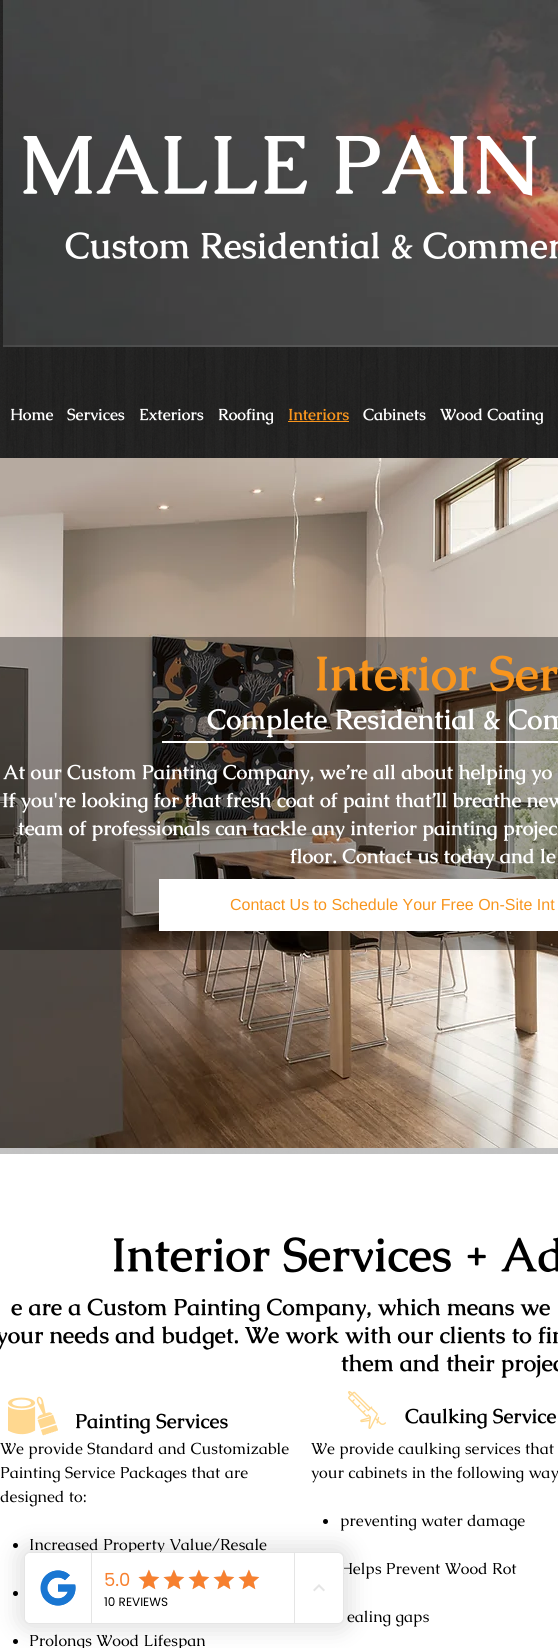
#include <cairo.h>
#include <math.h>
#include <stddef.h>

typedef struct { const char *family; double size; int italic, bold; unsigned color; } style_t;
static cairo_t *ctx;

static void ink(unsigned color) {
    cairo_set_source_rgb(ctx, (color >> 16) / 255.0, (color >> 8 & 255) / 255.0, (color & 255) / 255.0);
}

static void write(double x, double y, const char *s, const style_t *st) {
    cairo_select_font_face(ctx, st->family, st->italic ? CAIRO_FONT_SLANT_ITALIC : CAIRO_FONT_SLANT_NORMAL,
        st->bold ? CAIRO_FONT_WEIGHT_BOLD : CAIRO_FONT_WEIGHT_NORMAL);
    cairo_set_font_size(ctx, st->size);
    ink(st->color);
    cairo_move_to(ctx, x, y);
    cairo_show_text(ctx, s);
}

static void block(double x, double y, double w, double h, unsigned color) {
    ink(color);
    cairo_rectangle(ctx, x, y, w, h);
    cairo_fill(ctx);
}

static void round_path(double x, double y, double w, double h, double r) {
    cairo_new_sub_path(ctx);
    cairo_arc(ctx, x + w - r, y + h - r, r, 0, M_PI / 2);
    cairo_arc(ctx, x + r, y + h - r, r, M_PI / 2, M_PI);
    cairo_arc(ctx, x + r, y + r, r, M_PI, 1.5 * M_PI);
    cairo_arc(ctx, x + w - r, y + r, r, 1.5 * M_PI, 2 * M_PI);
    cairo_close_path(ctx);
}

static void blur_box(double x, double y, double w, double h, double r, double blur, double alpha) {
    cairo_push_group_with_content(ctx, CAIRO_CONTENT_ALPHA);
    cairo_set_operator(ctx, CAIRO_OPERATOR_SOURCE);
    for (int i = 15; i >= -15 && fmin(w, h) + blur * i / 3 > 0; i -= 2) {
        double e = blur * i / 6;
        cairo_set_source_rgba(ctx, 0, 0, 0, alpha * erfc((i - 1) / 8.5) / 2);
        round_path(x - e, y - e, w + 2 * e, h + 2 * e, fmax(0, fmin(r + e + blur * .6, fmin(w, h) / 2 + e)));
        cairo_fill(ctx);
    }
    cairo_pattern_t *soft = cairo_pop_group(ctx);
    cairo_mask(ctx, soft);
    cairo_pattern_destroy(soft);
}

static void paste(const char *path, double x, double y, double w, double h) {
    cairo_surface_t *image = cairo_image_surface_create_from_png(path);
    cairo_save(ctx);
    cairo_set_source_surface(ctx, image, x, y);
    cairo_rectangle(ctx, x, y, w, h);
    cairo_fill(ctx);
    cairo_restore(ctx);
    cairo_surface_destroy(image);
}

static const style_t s1 = {"Caudex", 82, 0, 1, 0xffffff};
static const style_t s2 = {"Caudex", 36, 0, 1, 0xffffff};
static const style_t s3 = {"Caudex", 16, 0, 1, 0xffffff};
static const style_t s4 = {"Caudex", 16, 0, 1, 0xf8951d};
static const style_t s5 = {"Caudex", 48, 0, 1, 0xf8951d};
static const style_t s6 = {"Caudex", 28, 0, 1, 0xffffff};
static const style_t s7 = {"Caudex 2", 20, 0, 1, 0xffffff};
static const style_t s8 = {"Liberation Sans", 16, 0, 0, 0xf8951d};
static const style_t s9 = {"Caudex", 47, 0, 1, 0x000000};
static const style_t s10 = {"Caudex", 23, 0, 1, 0x000000};
static const style_t s11 = {"Caudex", 20, 0, 1, 0x000000};
static const style_t s12 = {"Caudex", 16, 0, 0, 0x000000};
static const style_t s13 = {"Poppins", 18, 0, 0, 0xf7802f};
static const style_t s14 = {"Poppins", 12, 0, 0, 0x000000};

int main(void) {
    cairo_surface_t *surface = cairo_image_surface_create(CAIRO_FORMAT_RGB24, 558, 1648);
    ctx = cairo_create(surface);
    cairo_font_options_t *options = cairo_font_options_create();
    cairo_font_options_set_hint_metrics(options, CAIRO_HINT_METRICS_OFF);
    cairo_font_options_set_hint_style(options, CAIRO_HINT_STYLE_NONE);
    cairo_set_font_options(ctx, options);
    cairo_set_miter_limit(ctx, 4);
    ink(0xffffff);
    cairo_paint(ctx);
    paste("pic1.png", 0, 0, 558, 1154);
    paste("pic2.png", 3, 0, 555, 347);
    write(19, 193, "MALLE PAIN", &s1);
    write(65, 258, "Custom Residential & Commer", &s2);
    write(10, 420, "Home", &s3);
    write(67, 420, "Services", &s3);
    write(139, 420, "Exteriors", &s3);
    write(218, 420, "Roofing", &s3);
    write(288, 420, "Interiors", &s4);
    block(288, 421, 61, 1, 0xf8951d);
    write(363, 420, "Cabinets", &s3);
    write(440, 420, "Wood Coating", &s3);
    paste("pic3.png", 0, 458, 558, 690);
    cairo_set_source_rgba(ctx, 0, 0, 0, 0.36);
    cairo_rectangle(ctx, 0, 637, 558, 313);
    cairo_fill(ctx);
    write(314, 690, "Interior Ser", &s5);
    write(207, 729, "Complete Residential & Com", &s6);
    block(162, 741, 396, 2, 0xffffff);
    write(3, 779, "At our Custom Painting Company, we’re all about helping yo", &s7);
    write(2, 807, "If you're looking for that fresh coat of paint that’ll breathe new", &s7);
    write(18, 835, "team of professionals can tackle any interior painting projec", &s7);
    write(290, 863, "floor. Contact us today and le", &s7);
    block(159, 879, 399, 52, 0xffffff);
    write(230, 910, "Contact Us to Schedule Your Free On-Site Int", &s8);
    cairo_set_source_rgba(ctx, 1, 1, 1, 0.72);
    cairo_rectangle(ctx, 0, 1148, 558, 6);
    cairo_fill(ctx);
    write(111, 1271, "Interior Services + Ad", &s9);
    write(11, 1315, "e are a Custom Painting Company, which means we", &s10);
    write(-4, 1343, "your needs and budget. We work with our clients to fin", &s10);
    write(341, 1371, "them and their projec", &s10);
    paste("pic4.png", 8, 1396, 50, 40);
    write(75, 1428, "Painting Services", &s11);
    write(0, 1454, "We provide Standard and Customizable", &s12);
    write(0, 1478, "Painting Service Packages that are", &s12);
    write(0, 1502, "designed to:", &s12);
    cairo_new_path(ctx);
    cairo_arc(ctx, 15.5, 1545.5, 2.5, 0, 2 * M_PI);
    cairo_fill(ctx);
    write(29, 1550, "Increased Property Value/Resale", &s12);
    cairo_new_path(ctx);
    cairo_arc(ctx, 15.5, 1593.5, 2.5, 0, 2 * M_PI);
    cairo_fill(ctx);
    cairo_arc(ctx, 15.5, 1641.5, 2.5, 0, 2 * M_PI);
    cairo_fill(ctx);
    write(29, 1646, "Prolongs Wood Lifespan", &s12);
    paste("pic5.png", 348, 1391, 38, 38);
    write(405, 1423, "Caulking Service", &s11);
    write(311, 1454, "We provide caulking services that", &s12);
    write(311, 1478, "your cabinets in the following way", &s12);
    cairo_new_path(ctx);
    cairo_arc(ctx, 325.5, 1521.5, 2.5, 0, 2 * M_PI);
    cairo_fill(ctx);
    write(340, 1526, "preventing water damage", &s12);
    write(340, 1574, "Helps Prevent Wood Rot", &s12);
    write(347, 1622, "ealing gaps", &s12);
    ink(0x000000);
    blur_box(18, 1546, 332, 84, 12, 12, 0.12);
    ink(0xffffff);
    round_path(24.5, 1552.5, 319, 71, 5.5);
    cairo_fill_preserve(ctx);
    ink(0xe5e5e5);
    cairo_set_line_width(ctx, 1);
    cairo_stroke(ctx);
    ink(0xffffff);
    cairo_new_path(ctx);
    cairo_move_to(ctx, 31, 1553);
    cairo_line_to(ctx, 92, 1553);
    cairo_line_to(ctx, 92, 1623);
    cairo_line_to(ctx, 31, 1623);
    cairo_curve_to(ctx, 27.5, 1623, 25, 1620.5, 25, 1617);
    cairo_line_to(ctx, 25, 1559);
    cairo_curve_to(ctx, 25, 1555.5, 27.5, 1553, 31, 1553);
    cairo_close_path(ctx);
    cairo_fill(ctx);
    block(91, 1553, 1, 70, 0xe5e5e5);
    paste("pic6.png", 40, 1570, 36, 36);
    block(294, 1553, 1, 70, 0xe5e5e5);
    write(104, 1586, "5.0", &s13);
    paste("pic8.png", 138, 1570, 21, 19);
    paste("pic7.png", 138, 1569, 22, 21);
    paste("pic8.png", 163, 1570, 21, 19);
    paste("pic7.png", 163, 1569, 22, 21);
    paste("pic8.png", 188, 1570, 21, 19);
    paste("pic7.png", 188, 1569, 22, 21);
    paste("pic8.png", 213, 1570, 21, 19);
    paste("pic7.png", 213, 1569, 22, 21);
    paste("pic8.png", 238, 1570, 21, 19);
    paste("pic7.png", 238, 1569, 22, 21);
    write(104, 1606, "10 REVIEWS", &s14);
    paste("pic9.png", 313, 1584, 12, 8);
    cairo_surface_write_to_png(surface, "screenshot.png");
    cairo_font_options_destroy(options);
    cairo_destroy(ctx);
    cairo_surface_destroy(surface);
    return 0;
}
